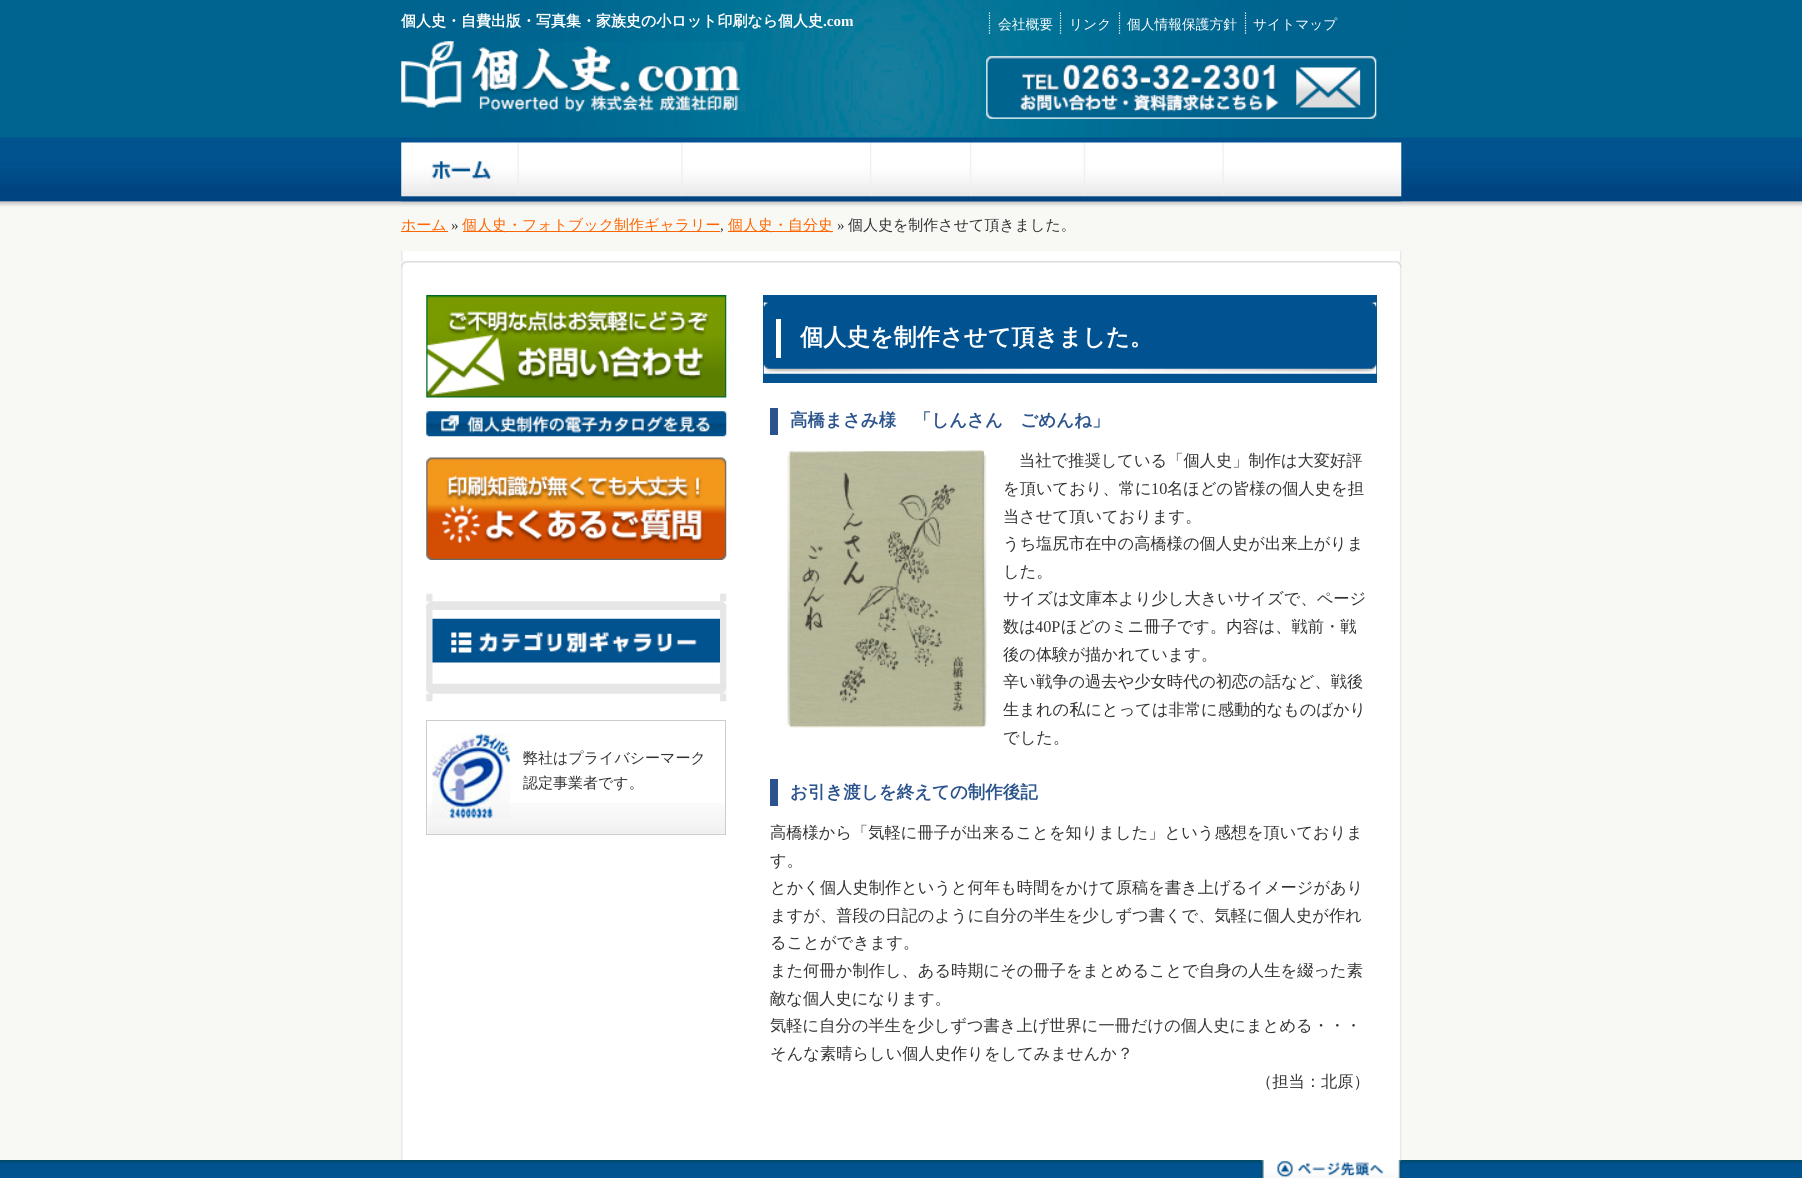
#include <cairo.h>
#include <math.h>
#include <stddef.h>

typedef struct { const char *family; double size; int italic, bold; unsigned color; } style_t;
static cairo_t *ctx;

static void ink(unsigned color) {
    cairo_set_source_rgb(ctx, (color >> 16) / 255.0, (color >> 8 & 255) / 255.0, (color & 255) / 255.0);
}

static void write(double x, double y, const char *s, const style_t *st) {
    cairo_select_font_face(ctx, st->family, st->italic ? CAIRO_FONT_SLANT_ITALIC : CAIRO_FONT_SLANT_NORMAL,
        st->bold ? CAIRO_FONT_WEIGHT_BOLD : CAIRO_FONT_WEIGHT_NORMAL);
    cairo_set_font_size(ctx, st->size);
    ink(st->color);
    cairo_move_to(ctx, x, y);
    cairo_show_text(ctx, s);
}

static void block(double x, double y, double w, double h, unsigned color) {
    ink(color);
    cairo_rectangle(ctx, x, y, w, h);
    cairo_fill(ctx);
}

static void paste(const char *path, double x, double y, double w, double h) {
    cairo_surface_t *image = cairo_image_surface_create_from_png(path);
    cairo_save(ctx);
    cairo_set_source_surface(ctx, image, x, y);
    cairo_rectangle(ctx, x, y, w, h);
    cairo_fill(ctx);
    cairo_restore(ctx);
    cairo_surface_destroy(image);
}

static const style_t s1 = {"WenQuanYi Zen Hei", 15, 0, 1, 0xffffff};
static const style_t s2 = {"Liberation Serif", 15, 0, 1, 0xffffff};
static const style_t s3 = {"WenQuanYi Zen Hei Medium", 13.75, 0, 0, 0xffffff};
static const style_t s4 = {"WenQuanYi Zen Hei Medium", 15, 0, 0, 0xff6600};
static const style_t s5 = {"Liberation Serif", 15, 0, 0, 0x333333};
static const style_t s6 = {"WenQuanYi Zen Hei Medium", 15, 0, 0, 0x333333};
static const style_t s7 = {"WenQuanYi Zen Hei", 23.25, 0, 1, 0xffffff};
static const style_t s8 = {"WenQuanYi Zen Hei", 17.5, 0, 1, 0x2b548d};
static const style_t s9 = {"WenQuanYi Zen Hei Medium", 16.25, 0, 0, 0x333333};
static const style_t s10 = {"Liberation Serif", 16.25, 0, 0, 0x333333};

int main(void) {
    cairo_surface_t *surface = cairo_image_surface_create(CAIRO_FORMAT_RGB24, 1802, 1178);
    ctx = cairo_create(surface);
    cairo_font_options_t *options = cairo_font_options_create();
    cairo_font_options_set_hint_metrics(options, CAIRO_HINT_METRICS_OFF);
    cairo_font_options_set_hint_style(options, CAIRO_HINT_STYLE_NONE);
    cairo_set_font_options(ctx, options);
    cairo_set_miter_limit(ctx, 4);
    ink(0xf8f8f5);
    cairo_paint(ctx);
    paste("pic1.png", 0, 0, 1802, 207);
    paste("pic2.png", 401, 0, 1001, 200);
    write(401, 26, "個人史・自費出版・写真集・家族史の小ロット印刷なら個人史", &s1);
    write(823, 26, ".com", &s2);
    cairo_new_path(ctx);
    cairo_move_to(ctx, 989.5, 12.5);
    cairo_line_to(ctx, 989.5, 35);
    cairo_set_line_width(ctx, 1.2);
    cairo_set_dash(ctx, (double[]){1.25, 1.25}, 2, 0);
    cairo_stroke(ctx);
    write(998, 29, "会社概要", &s3);
    cairo_new_path(ctx);
    cairo_move_to(ctx, 1060.5, 12.5);
    cairo_line_to(ctx, 1060.5, 35);
    cairo_stroke(ctx);
    write(1069, 29, "リンク", &s3);
    cairo_new_path(ctx);
    cairo_move_to(ctx, 1119.5, 12.5);
    cairo_line_to(ctx, 1119.5, 35);
    cairo_stroke(ctx);
    write(1127, 29, "個人情報保護方針", &s3);
    cairo_new_path(ctx);
    cairo_move_to(ctx, 1245.5, 12.5);
    cairo_line_to(ctx, 1245.5, 35);
    cairo_stroke(ctx);
    write(1253, 29, "サイトマップ", &s3);
    paste("pic3.png", 401, 41, 345, 71);
    paste("pic4.png", 986, 56, 391, 63);
    paste("pic5.png", 401, 137, 1001, 65);
    paste("pic6.png", 431, 161, 63, 26);
    block(401, 231, 47, 1, 0xff6600);
    write(401, 230, "ホーム", &s4);
    write(451, 230, "»", &s5);
    block(463, 231, 257, 1, 0xff6600);
    write(462, 230, "個人史・フォトブック制作ギャラリー", &s4);
    block(728, 231, 105, 1, 0xff6600);
    write(728, 230, "個人史・自分史", &s4);
    write(837, 230, "»", &s5);
    write(848, 230, "個人史を制作させて頂きました。", &s6);
    write(720, 230, ",", &s5);
    paste("pic7.png", 401, 251, 1001, 909);
    paste("pic8.png", 401, 261, 1001, 7);
    paste("pic9.png", 426, 295, 301, 103);
    paste("pic10.png", 426, 411, 301, 26);
    paste("pic11.png", 426, 457, 301, 103);
    paste("pic12.png", 426, 593, 301, 109);
    paste("pic13.png", 426, 601, 301, 9);
    paste("pic14.png", 432, 618, 288, 45);
    paste("pic15.png", 426, 683, 301, 11);
    paste("pic16.png", 427, 803, 298, 31);
    cairo_rectangle(ctx, 426.5, 720.5, 299, 114);
    ink(0xcccccc);
    cairo_set_line_width(ctx, 1);
    cairo_set_dash(ctx, NULL, 0, 0);
    cairo_stroke(ctx);
    paste("pic17.png", 432, 733, 78, 86);
    write(523, 763, "弊社はプライバシーマーク", &s6);
    write(523, 788, "認定事業者です。", &s6);
    block(763, 295, 614, 88, 0x015291);
    paste("pic18.png", 763, 302, 614, 9);
    block(776, 319, 5, 39, 0xffffff);
    write(800, 345, "個人史を制作させて頂きました。", &s7);
    paste("pic19.png", 763, 362, 614, 12);
    block(770, 408, 8, 27, 0x2b548d);
    write(790, 426, "高橋まさみ様　「しんさん　ごめんね」", &s8);
    paste("pic20.png", 786, 450, 204, 278);
    write(1019, 466, "当社で推奨している「個人史」制作は大変好評", &s9);
    write(1003, 494, "を頂いており、常に", &s9);
    write(1151, 494, "10", &s10);
    write(1167, 494, "名ほどの皆様の個人史を担", &s9);
    write(1003, 522, "当させて頂いております。", &s9);
    write(1003, 549, "うち塩尻市在中の高橋様の個人史が出来上がりま", &s9);
    write(1003, 577, "した。", &s9);
    write(1003, 604, "サイズは文庫本より少し大きいサイズで、ページ", &s9);
    write(1003, 632, "数は", &s9);
    write(1035, 632, "40P", &s10);
    write(1061, 632, "ほどのミニ冊子です。内容は、戦前・戦", &s9);
    write(1003, 660, "後の体験が描かれています。", &s9);
    write(1003, 687, "辛い戦争の過去や少女時代の初恋の話など、戦後", &s9);
    write(1003, 715, "生まれの私にとっては非常に感動的なものばかり", &s9);
    write(1003, 743, "でした。", &s9);
    block(770, 779, 8, 27, 0x2b548d);
    write(790, 798, "お引き渡しを終えての制作後記", &s8);
    write(770, 838, "高橋様から「気軽に冊子が出来ることを知りました」という感想を頂いておりま", &s9);
    write(770, 866, "す。", &s9);
    write(770, 893, "とかく個人史制作というと何年も時間をかけて原稿を書き上げるイメージがあり", &s9);
    write(770, 921, "ますが、普段の日記のように自分の半生を少しずつ書くで、気軽に個人史が作れ", &s9);
    write(770, 948, "ることができます。", &s9);
    write(770, 976, "また何冊か制作し、ある時期にその冊子をまとめることで自身の人生を綴った素", &s9);
    write(770, 1004, "敵な個人史になります。", &s9);
    write(770, 1031, "気軽に自分の半生を少しずつ書き上げ世界に一冊だけの個人史にまとめる・・・", &s9);
    write(770, 1059, "そんな素晴らしい個人史作りをしてみませんか？", &s9);
    write(1256, 1087, "（担当：北原）", &s9);
    block(0, 1164, 1802, 14, 0x00538f);
    paste("pic21.png", 0, 1160, 1802, 4);
    paste("pic22.png", 1261, 1160, 141, 18);
    cairo_surface_write_to_png(surface, "screenshot.png");
    cairo_font_options_destroy(options);
    cairo_destroy(ctx);
    cairo_surface_destroy(surface);
    return 0;
}
